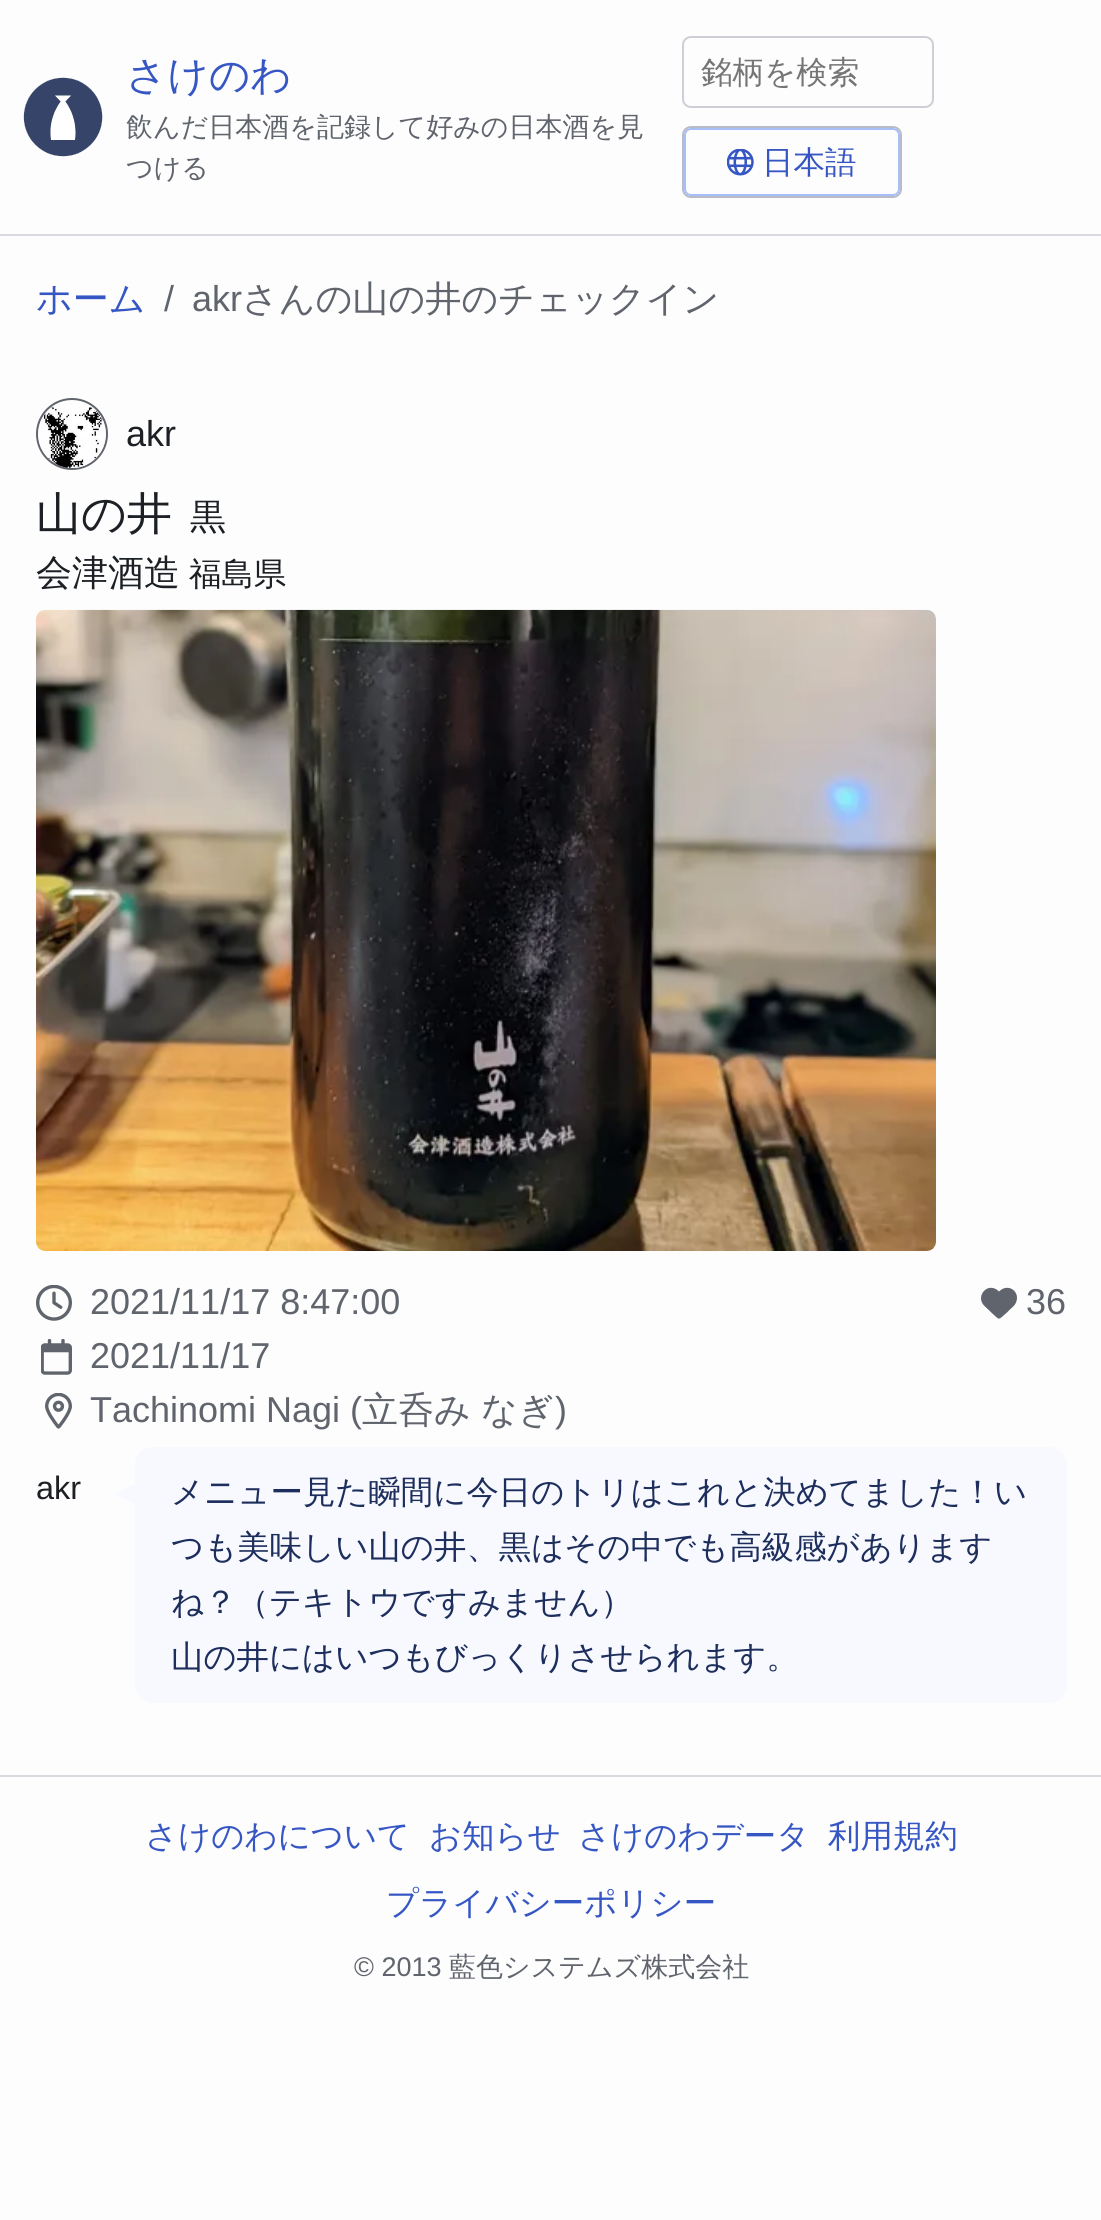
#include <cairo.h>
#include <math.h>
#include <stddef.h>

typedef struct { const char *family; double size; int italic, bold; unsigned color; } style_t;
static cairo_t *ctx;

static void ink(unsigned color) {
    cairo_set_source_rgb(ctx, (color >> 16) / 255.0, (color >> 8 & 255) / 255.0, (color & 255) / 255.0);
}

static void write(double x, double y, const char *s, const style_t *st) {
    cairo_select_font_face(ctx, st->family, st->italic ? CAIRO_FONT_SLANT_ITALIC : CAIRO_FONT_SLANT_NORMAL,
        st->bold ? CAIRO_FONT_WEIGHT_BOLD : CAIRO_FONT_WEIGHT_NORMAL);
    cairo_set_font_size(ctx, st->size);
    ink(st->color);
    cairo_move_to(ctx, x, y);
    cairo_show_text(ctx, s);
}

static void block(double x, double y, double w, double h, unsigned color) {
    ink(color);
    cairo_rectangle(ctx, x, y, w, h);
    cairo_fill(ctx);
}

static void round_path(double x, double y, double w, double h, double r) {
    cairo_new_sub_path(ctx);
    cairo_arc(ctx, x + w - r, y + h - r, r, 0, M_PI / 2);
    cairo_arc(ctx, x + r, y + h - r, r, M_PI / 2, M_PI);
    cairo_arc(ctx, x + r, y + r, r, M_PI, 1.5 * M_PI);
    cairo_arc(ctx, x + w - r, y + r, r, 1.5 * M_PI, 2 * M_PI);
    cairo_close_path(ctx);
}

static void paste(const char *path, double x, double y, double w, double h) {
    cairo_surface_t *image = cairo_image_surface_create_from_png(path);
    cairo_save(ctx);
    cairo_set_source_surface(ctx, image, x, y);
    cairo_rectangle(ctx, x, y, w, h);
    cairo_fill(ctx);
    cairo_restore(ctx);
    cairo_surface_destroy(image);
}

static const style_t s1 = {"WenQuanYi Zen Hei Medium", 40.5, 0, 0, 0x3657c3};
static const style_t s2 = {"WenQuanYi Zen Hei Medium", 27, 0, 0, 0x60646c};
static const style_t s3 = {"WenQuanYi Zen Hei Medium", 31.5, 0, 0, 0x757575};
static const style_t s4 = {"WenQuanYi Zen Hei Medium", 31.5, 0, 0, 0x3657c3};
static const style_t s5 = {"WenQuanYi Zen Hei Medium", 36, 0, 0, 0x3657c3};
static const style_t s6 = {"Liberation Sans", 36, 0, 0, 0x60646c};
static const style_t s7 = {"WenQuanYi Zen Hei Medium", 36, 0, 0, 0x60646c};
static const style_t s8 = {"Liberation Sans", 36, 0, 0, 0x1c2024};
static const style_t s9 = {"WenQuanYi Zen Hei Medium", 45, 0, 0, 0x1c2024};
static const style_t s10 = {"WenQuanYi Zen Hei Medium", 36, 0, 0, 0x1c2024};
static const style_t s11 = {"WenQuanYi Zen Hei Medium", 32.4, 0, 0, 0x1c2024};
static const style_t s12 = {"Liberation Sans", 32.4, 0, 0, 0x1c2024};
static const style_t s13 = {"WenQuanYi Zen Hei Medium", 32.4, 0, 0, 0x1d2e5c};
static const style_t s14 = {"WenQuanYi Zen Hei Medium", 32.4, 0, 0, 0x3657c3};
static const style_t s15 = {"Liberation Sans", 27, 0, 0, 0x60646c};

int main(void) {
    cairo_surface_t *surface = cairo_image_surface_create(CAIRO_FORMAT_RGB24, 1101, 2220);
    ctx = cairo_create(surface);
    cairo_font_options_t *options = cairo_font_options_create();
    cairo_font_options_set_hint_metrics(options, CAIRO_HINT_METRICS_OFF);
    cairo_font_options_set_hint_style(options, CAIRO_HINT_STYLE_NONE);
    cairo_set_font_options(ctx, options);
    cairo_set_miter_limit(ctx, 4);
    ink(0xfdfdfe);
    cairo_paint(ctx);
    block(0, 234, 1101, 2, 0xd9d9e0);
    paste("pic1.png", 23, 77, 80, 80);
    write(126, 89, "さけのわ", &s1);
    write(126, 136, "飲んだ日本酒を記録して好みの日本酒を見", &s2);
    write(126, 177, "つける", &s2);
    round_path(683, 37, 250, 70, 8);
    ink(0xcdced6);
    cairo_stroke(ctx);
    write(701, 83, "銘柄を検索", &s3);
    round_path(685, 129, 214, 66, 6);
    ink(0xa6bff9);
    cairo_stroke(ctx);
    round_path(683, 127, 218, 70, 8);
    ink(0xb9bbc6);
    cairo_stroke(ctx);
    paste("pic2.png", 727, 149, 27, 27);
    write(762, 173, "日本語", &s4);
    write(36, 311, "ホーム", &s5);
    write(164, 311, "/", &s6);
    write(192, 311, "akr", &s6);
    write(242, 311, "さんの山の井のチェックイン", &s7);
    cairo_new_path(ctx);
    cairo_arc(ctx, 72, 434, 35, 0, 2 * M_PI);
    cairo_stroke(ctx);
    paste("pic3.png", 38, 401, 68, 67);
    write(126, 446, "akr", &s8);
    write(36, 529, "山の井", &s9);
    write(190, 529, "黒", &s10);
    write(36, 585, "会津酒造", &s10);
    write(189, 585, "福島県", &s11);
    paste("pic4.png", 36, 609, 900, 642);
    paste("pic5.png", 36, 1285, 36, 36);
    write(90, 1314, "2021/11/17 8:47:00", &s6);
    paste("pic6.png", 41, 1339, 31, 36);
    write(90, 1368, "2021/11/17", &s6);
    paste("pic7.png", 45, 1393, 27, 36);
    write(90, 1422, "Tachinomi Nagi (", &s6);
    write(362, 1422, "立呑み", &s7);
    write(481, 1422, "なぎ", &s7);
    write(555, 1422, ")", &s6);
    cairo_new_path(ctx);
    cairo_move_to(ctx, 984.5, 1306);
    cairo_line_to(ctx, 995, 1316);
    cairo_curve_to(ctx, 999, 1319.5, 999, 1319.5, 1003, 1316);
    cairo_line_to(ctx, 1007.5, 1312);
    cairo_curve_to(ctx, 1010, 1309, 1014, 1306.5, 1015.5, 1303.5);
    cairo_curve_to(ctx, 1021.5, 1292.5, 1008.5, 1282, 999, 1291.5);
    cairo_curve_to(ctx, 988, 1280.5, 974.5, 1296.5, 984.5, 1306);
    cairo_fill(ctx);
    write(1026, 1314, "36", &s6);
    write(36, 1499, "akr", &s12);
    ink(0xf7f9ff);
    round_path(135, 1447, 932, 256, 18);
    cairo_fill(ctx);
    cairo_new_path(ctx);
    cairo_move_to(ctx, 137, 1505);
    cairo_line_to(ctx, 115, 1494);
    cairo_line_to(ctx, 137, 1483);
    cairo_close_path(ctx);
    cairo_fill(ctx);
    write(171, 1503, "メニュー見た瞬間に今日のトリはこれと決めてました！い", &s13);
    write(171, 1558, "つも美味しい山の井、黒はその中でも高級感があります", &s13);
    write(171, 1613, "ね？（テキトウですみません）", &s13);
    write(171, 1668, "山の井にはいつもびっくりさせられます。", &s13);
    block(0, 1775, 1101, 2, 0xd9d9e0);
    write(145, 1847, "さけのわについて", &s14);
    write(429, 1847, "お知らせ", &s14);
    write(578, 1847, "さけのわデータ", &s14);
    write(828, 1847, "利用規約", &s14);
    write(386, 1914, "プライバシーポリシー", &s14);
    write(354, 1976, "© 2013", &s15);
    write(449, 1976, "藍色システムズ株式会社", &s2);
    cairo_surface_write_to_png(surface, "screenshot.png");
    cairo_font_options_destroy(options);
    cairo_destroy(ctx);
    cairo_surface_destroy(surface);
    return 0;
}
